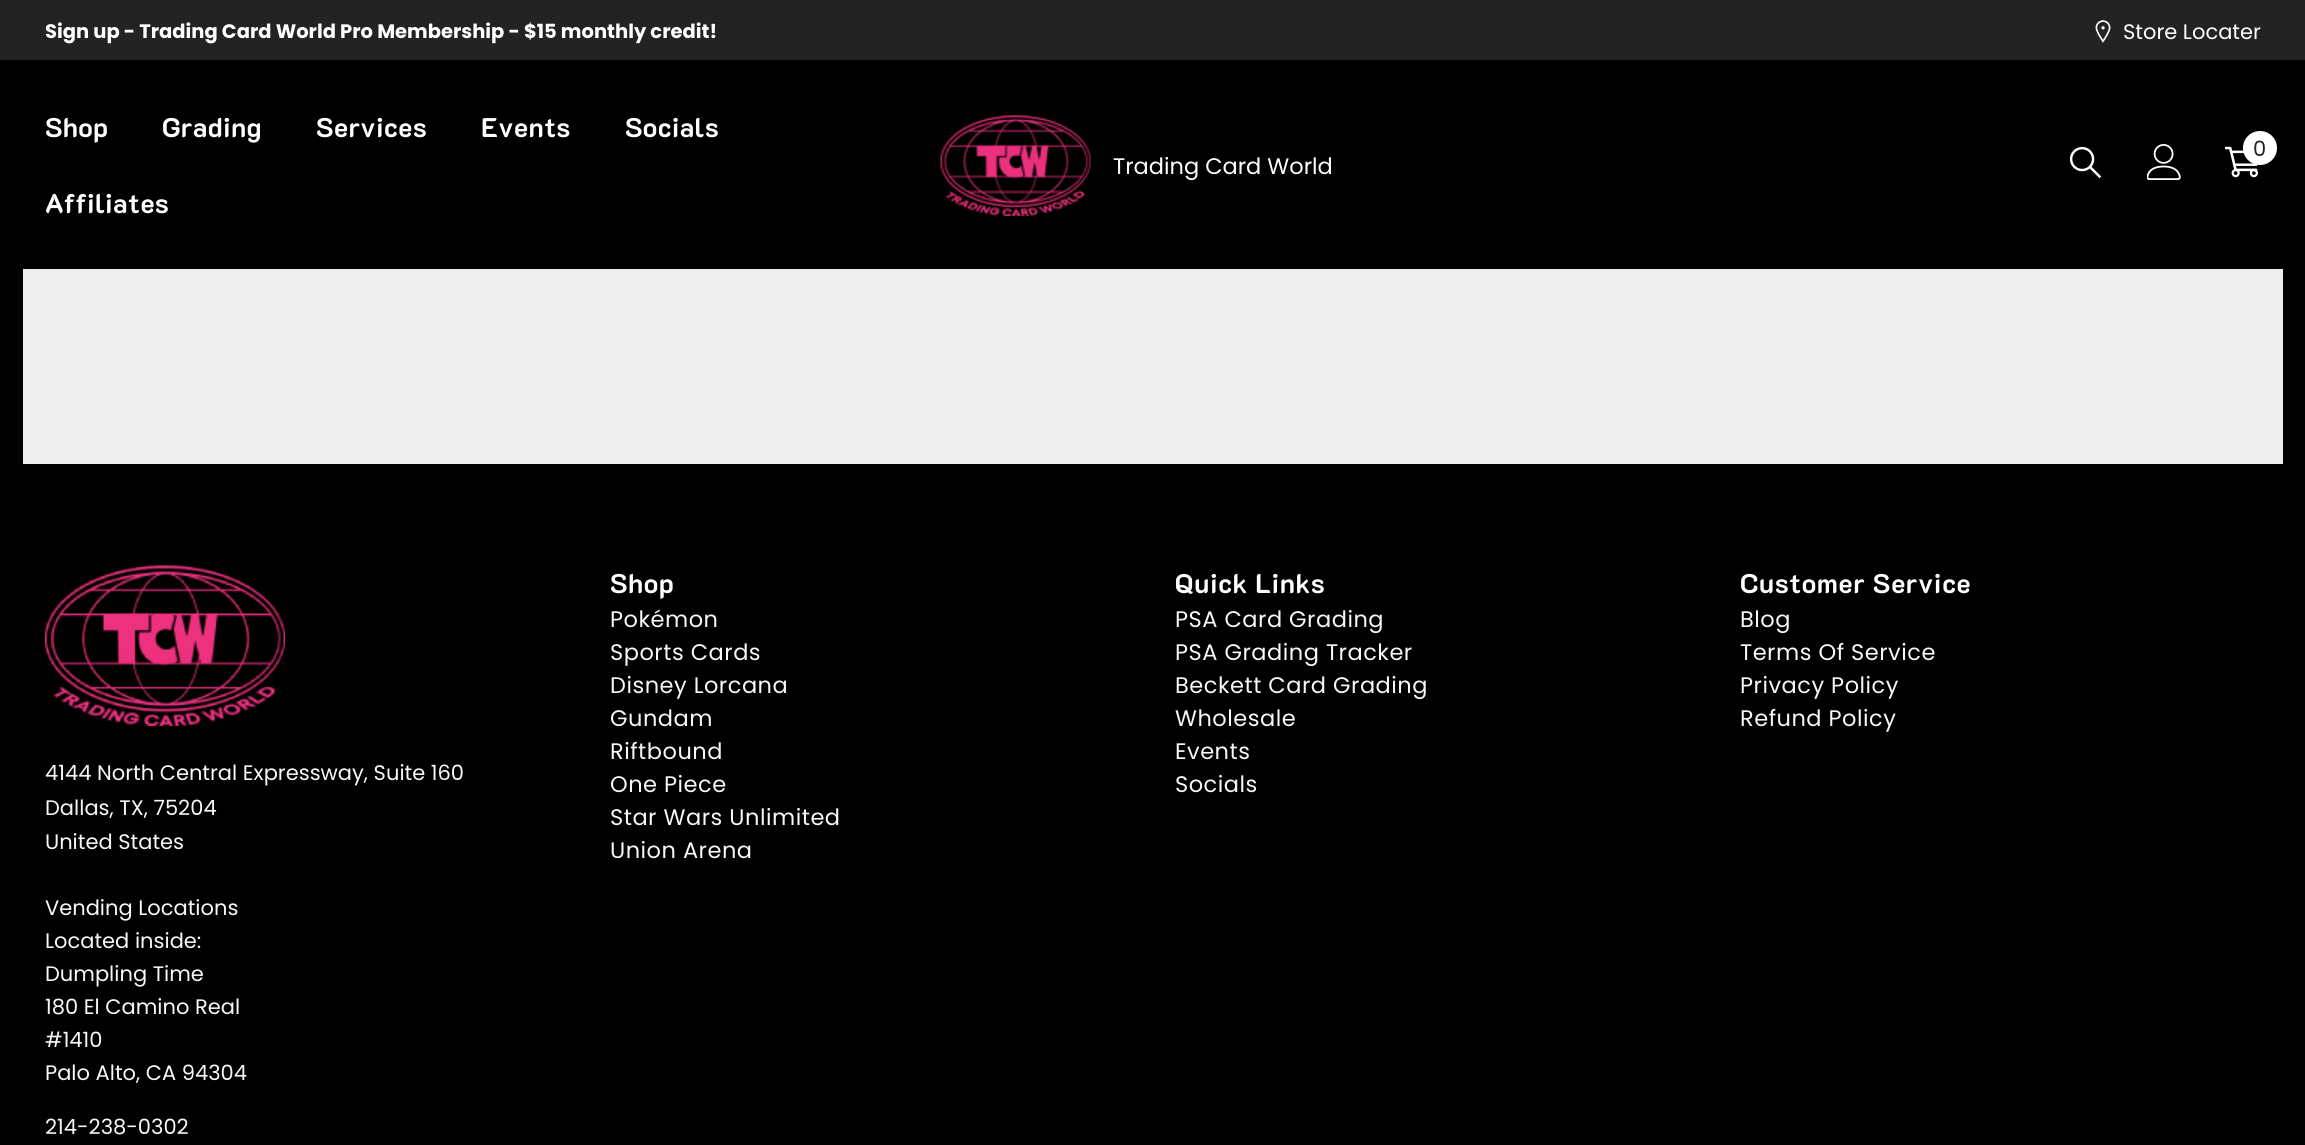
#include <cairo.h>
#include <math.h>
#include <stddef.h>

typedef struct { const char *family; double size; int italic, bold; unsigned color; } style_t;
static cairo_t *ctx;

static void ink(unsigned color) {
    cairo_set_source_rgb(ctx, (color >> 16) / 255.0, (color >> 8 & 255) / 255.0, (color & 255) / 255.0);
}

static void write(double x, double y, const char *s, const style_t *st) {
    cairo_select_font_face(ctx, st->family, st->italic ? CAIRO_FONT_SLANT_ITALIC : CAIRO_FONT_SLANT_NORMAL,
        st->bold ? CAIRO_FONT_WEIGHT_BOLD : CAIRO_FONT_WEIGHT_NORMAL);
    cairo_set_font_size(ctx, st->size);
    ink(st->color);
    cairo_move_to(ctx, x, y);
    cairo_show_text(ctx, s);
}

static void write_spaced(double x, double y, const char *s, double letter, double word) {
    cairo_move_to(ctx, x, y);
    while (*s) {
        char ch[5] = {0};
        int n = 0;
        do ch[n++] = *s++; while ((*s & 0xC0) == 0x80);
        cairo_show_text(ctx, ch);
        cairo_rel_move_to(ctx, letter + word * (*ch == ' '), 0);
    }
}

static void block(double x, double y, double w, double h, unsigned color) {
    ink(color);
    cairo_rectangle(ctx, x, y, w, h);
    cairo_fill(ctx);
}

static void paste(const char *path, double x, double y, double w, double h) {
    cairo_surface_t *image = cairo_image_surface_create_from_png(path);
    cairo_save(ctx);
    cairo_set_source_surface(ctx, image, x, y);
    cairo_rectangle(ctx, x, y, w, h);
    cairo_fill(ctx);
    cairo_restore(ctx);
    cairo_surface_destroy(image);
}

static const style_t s1 = {"Poppins", 19.5, 0, 1, 0xffffff};
static const style_t s2 = {"Poppins", 21, 0, 0, 0xffffff};
static const style_t s3 = {"Poppins", 21, 0, 0, 0x232323};
static const style_t s4 = {"Poppins", 22.5, 0, 0, 0xffffff};
static const style_t s5 = {"Poppins", 21, 0, 0, 0xf8f8f8};

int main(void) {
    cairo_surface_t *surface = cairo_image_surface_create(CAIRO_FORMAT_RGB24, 2305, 1145);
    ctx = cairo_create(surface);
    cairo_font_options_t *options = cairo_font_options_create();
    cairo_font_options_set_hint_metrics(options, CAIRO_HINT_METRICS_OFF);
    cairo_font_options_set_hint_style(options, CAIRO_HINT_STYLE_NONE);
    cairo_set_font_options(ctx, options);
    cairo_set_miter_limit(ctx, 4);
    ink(0x000000);
    cairo_paint(ctx);
    block(0, 0, 2305, 60, 0x232323);
    write(45, 38, "Sign up - Trading Card World Pro Membership - $15 monthly credit!", &s1);
    paste("pic1.png", 2095, 20, 16, 23);
    write(2123, 39, "Store Locater", &s2);
    cairo_select_font_face(ctx, "K2D", CAIRO_FONT_SLANT_NORMAL, CAIRO_FONT_WEIGHT_BOLD);
    cairo_set_font_size(ctx, 27);
    write_spaced(45, 137, "Shop", 0.25, 0);
    write_spaced(162, 137, "Grading", 0.25, 0);
    write_spaced(316, 137, "Services", 0.25, 0);
    write_spaced(481, 137, "Events", 0.25, 0);
    write_spaced(625, 137, "Socials", 0.25, 0);
    write_spaced(45, 213, "Affiliates", 0.25, 0);
    paste("pic2.png", 2069, 146, 33, 33);
    paste("pic3.png", 2147, 144, 34, 36);
    paste("pic4.png", 2225, 146, 33, 32);
    cairo_arc(ctx, 2260, 148, 17, 0, 2 * M_PI);
    cairo_fill(ctx);
    write(2253, 156, "0", &s3);
    paste("pic5.png", 940, 115, 151, 101);
    write(1113, 174, "Trading Card World", &s4);
    block(23, 269, 2260, 195, 0xeeeeee);
    cairo_select_font_face(ctx, "K2D", CAIRO_FONT_SLANT_NORMAL, CAIRO_FONT_WEIGHT_BOLD);
    cairo_set_font_size(ctx, 27);
    ink(0xffffff);
    write_spaced(610, 593, "Shop", 0.5, 0);
    cairo_select_font_face(ctx, "Poppins", CAIRO_FONT_SLANT_NORMAL, CAIRO_FONT_WEIGHT_NORMAL);
    cairo_set_font_size(ctx, 22.5);
    ink(0xf8f8f8);
    write_spaced(610, 627, "Pokémon", 0.5, 0);
    write_spaced(610, 660, "Sports Cards", 0.5, 0);
    write_spaced(610, 693, "Disney Lorcana", 0.5, 0);
    write_spaced(610, 726, "Gundam", 0.5, 0);
    write_spaced(610, 759, "Riftbound", 0.5, 0);
    write_spaced(610, 792, "One Piece", 0.5, 0);
    write_spaced(610, 825, "Star Wars Unlimited", 0.5, 0);
    write_spaced(610, 858, "Union Arena", 0.5, 0);
    cairo_select_font_face(ctx, "K2D", CAIRO_FONT_SLANT_NORMAL, CAIRO_FONT_WEIGHT_BOLD);
    cairo_set_font_size(ctx, 27);
    ink(0xffffff);
    write_spaced(1175, 593, "Quick Links", 0.5, 0);
    cairo_select_font_face(ctx, "Poppins", CAIRO_FONT_SLANT_NORMAL, CAIRO_FONT_WEIGHT_NORMAL);
    cairo_set_font_size(ctx, 22.5);
    ink(0xf8f8f8);
    write_spaced(1175, 627, "PSA Card Grading", 0.5, 0);
    write_spaced(1175, 660, "PSA Grading Tracker", 0.5, 0);
    write_spaced(1175, 693, "Beckett Card Grading", 0.5, 0);
    write_spaced(1175, 726, "Wholesale", 0.5, 0);
    write_spaced(1175, 759, "Events", 0.5, 0);
    write_spaced(1175, 792, "Socials", 0.5, 0);
    cairo_select_font_face(ctx, "K2D", CAIRO_FONT_SLANT_NORMAL, CAIRO_FONT_WEIGHT_BOLD);
    cairo_set_font_size(ctx, 27);
    ink(0xffffff);
    write_spaced(1740, 593, "Customer Service", 0.5, 0);
    cairo_select_font_face(ctx, "Poppins", CAIRO_FONT_SLANT_NORMAL, CAIRO_FONT_WEIGHT_NORMAL);
    cairo_set_font_size(ctx, 22.5);
    ink(0xf8f8f8);
    write_spaced(1740, 627, "Blog", 0.5, 0);
    write_spaced(1740, 660, "Terms Of Service", 0.5, 0);
    write_spaced(1740, 693, "Privacy Policy", 0.5, 0);
    write_spaced(1740, 726, "Refund Policy", 0.5, 0);
    paste("pic6.png", 45, 565, 240, 161);
    write(45, 780, "4144 North Central Expressway, Suite 160", &s5);
    write(45, 815, "Dallas, TX, 75204", &s5);
    write(45, 849, "United States", &s5);
    write(45, 915, "Vending Locations", &s5);
    write(45, 948, "Located inside:", &s5);
    write(45, 981, "Dumpling Time", &s5);
    write(45, 1014, "180 El Camino Real", &s5);
    write(45, 1047, "#1410", &s5);
    write(45, 1080, "Palo Alto, CA 94304", &s5);
    write(45, 1134, "214-238-0302", &s5);
    cairo_surface_write_to_png(surface, "screenshot.png");
    cairo_font_options_destroy(options);
    cairo_destroy(ctx);
    cairo_surface_destroy(surface);
    return 0;
}
